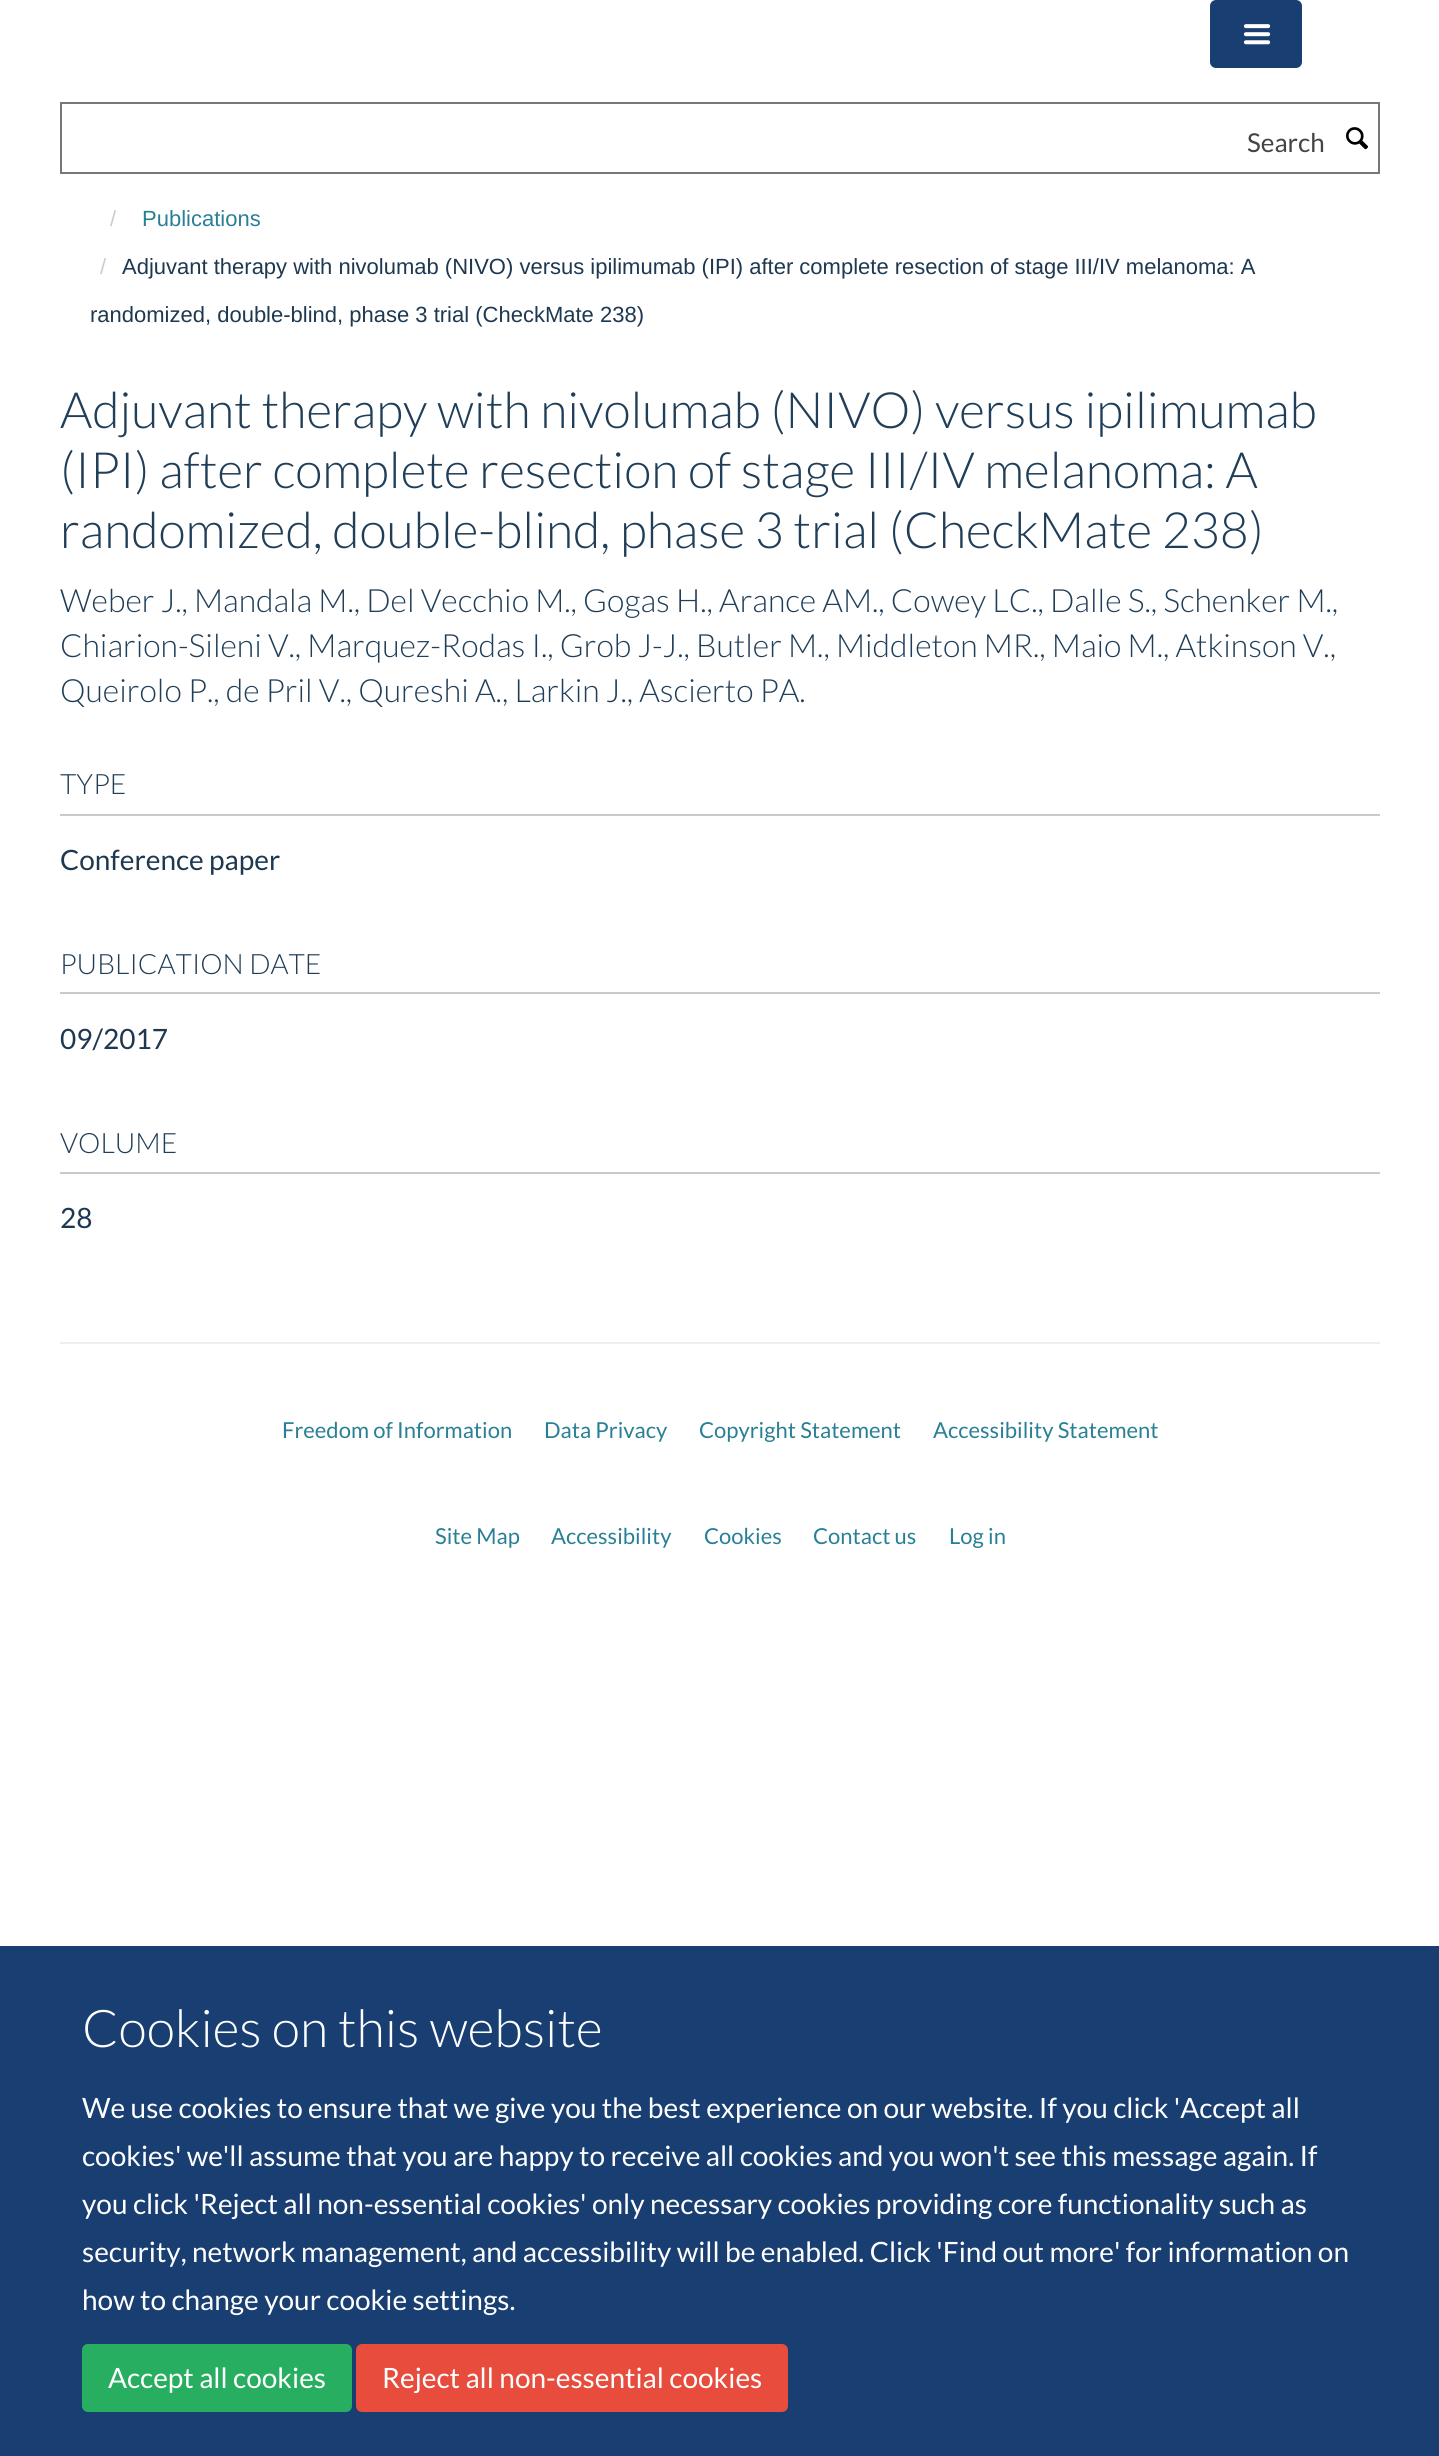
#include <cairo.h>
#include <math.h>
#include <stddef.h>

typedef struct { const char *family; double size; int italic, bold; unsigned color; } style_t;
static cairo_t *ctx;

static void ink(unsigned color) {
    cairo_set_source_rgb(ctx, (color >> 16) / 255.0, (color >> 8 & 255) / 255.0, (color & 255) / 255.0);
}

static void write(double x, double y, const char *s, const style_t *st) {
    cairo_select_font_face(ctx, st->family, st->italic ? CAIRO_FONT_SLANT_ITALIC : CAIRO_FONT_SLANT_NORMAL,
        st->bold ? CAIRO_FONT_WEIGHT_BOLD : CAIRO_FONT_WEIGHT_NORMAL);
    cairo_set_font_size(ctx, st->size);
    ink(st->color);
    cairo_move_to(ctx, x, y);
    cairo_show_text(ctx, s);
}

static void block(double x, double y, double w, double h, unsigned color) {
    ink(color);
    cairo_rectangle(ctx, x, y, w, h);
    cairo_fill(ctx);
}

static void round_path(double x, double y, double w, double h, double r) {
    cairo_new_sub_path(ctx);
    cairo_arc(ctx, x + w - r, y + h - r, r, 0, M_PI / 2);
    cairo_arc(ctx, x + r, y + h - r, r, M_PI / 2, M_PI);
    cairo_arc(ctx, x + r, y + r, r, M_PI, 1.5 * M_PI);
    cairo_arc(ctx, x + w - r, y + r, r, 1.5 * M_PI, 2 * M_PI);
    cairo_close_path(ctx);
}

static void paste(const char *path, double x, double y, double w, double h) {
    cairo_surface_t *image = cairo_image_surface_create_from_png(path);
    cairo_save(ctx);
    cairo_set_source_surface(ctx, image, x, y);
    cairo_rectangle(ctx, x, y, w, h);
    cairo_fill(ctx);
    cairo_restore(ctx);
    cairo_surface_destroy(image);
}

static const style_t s1 = {"Lato", 26, 0, 0, 0x444444};
static const style_t s2 = {"Liberation Sans", 22, 0, 0, 0xcccccc};
static const style_t s3 = {"Liberation Sans", 22, 0, 0, 0x298096};
static const style_t s4 = {"Liberation Sans", 22, 0, 0, 0x1d3850};
static const style_t s5 = {"Lato Light", 50, 0, 0, 0x203e58};
static const style_t s6 = {"Lato Light", 32, 0, 0, 0x203e58};
static const style_t s7 = {"Lato Light", 28, 0, 0, 0x203e58};
static const style_t s8 = {"Lato", 28, 0, 0, 0x1d3850};
static const style_t s9 = {"Lato", 22, 0, 0, 0x298096};
static const style_t s10 = {"Lato Light", 52, 0, 0, 0xffffff};
static const style_t s11 = {"Lato", 28, 0, 0, 0xffffff};

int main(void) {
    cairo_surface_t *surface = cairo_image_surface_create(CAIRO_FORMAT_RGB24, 1439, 2456);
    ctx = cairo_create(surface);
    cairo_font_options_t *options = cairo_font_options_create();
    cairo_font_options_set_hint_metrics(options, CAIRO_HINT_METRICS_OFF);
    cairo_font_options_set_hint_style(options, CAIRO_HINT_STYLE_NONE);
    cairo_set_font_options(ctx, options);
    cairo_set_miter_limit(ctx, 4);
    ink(0xffffff);
    cairo_paint(ctx);
    ink(0x193e72);
    round_path(1211, 1, 90, 66, 5);
    cairo_fill_preserve(ctx);
    cairo_stroke(ctx);
    paste("pic1.png", 1243, 24, 28, 21);
    cairo_rectangle(ctx, 61, 103, 1318, 70);
    ink(0x777777);
    cairo_stroke(ctx);
    write(1247, 152, "Search", &s1);
    paste("pic2.png", 1346, 127, 23, 23);
    write(110, 226, "/", &s2);
    write(142, 226, "Publications", &s3);
    write(100, 274, "/", &s2);
    write(122, 274, "Adjuvant therapy with nivolumab (NIVO) versus ipilimumab (IPI) after complete resection of stage III/IV melanoma: A", &s4);
    write(90, 322, "randomized, double-blind, phase 3 trial (CheckMate 238)", &s4);
    write(60, 428, "Adjuvant therapy with nivolumab (NIVO) versus ipilimumab", &s5);
    write(60, 488, "(IPI) after complete resection of stage III/IV melanoma: A", &s5);
    write(60, 548, "randomized, double-blind, phase 3 trial (CheckMate 238)", &s5);
    write(60, 612, "Weber J., Mandala M., Del Vecchio M., Gogas H., Arance AM., Cowey LC., Dalle S., Schenker M.,", &s6);
    write(60, 657, "Chiarion-Sileni V., Marquez-Rodas I., Grob J-J., Butler M., Middleton MR., Maio M., Atkinson V.,", &s6);
    write(60, 702, "Queirolo P., de Pril V., Qureshi A., Larkin J., Ascierto PA.", &s6);
    block(60, 814, 1320, 2, 0xc6cacf);
    write(60, 794, "TYPE", &s7);
    write(60, 870, "Conference paper", &s8);
    block(60, 992, 1320, 2, 0xc6cacf);
    write(60, 974, "PUBLICATION DATE", &s7);
    write(60, 1049, "09/2017", &s8);
    block(60, 1172, 1320, 2, 0xc6cacf);
    write(60, 1153, "VOLUME", &s7);
    write(60, 1228, "28", &s8);
    block(60, 1342, 1320, 2, 0xeeeeee);
    write(282, 1438, "Freedom of Information", &s9);
    write(544, 1438, "Data Privacy", &s9);
    write(699, 1438, "Copyright Statement", &s9);
    write(933, 1438, "Accessibility Statement", &s9);
    write(435, 1544, "Site Map", &s9);
    write(551, 1544, "Accessibility", &s9);
    write(704, 1544, "Cookies", &s9);
    write(813, 1544, "Contact us", &s9);
    write(949, 1544, "Log in", &s9);
    block(0, 1946, 1439, 510, 0x193e72);
    write(82, 2047, "Cookies on this website", &s10);
    write(82, 2118, "We use cookies to ensure that we give you the best experience on our website. If you click 'Accept all", &s11);
    write(82, 2166, "cookies' we'll assume that you are happy to receive all cookies and you won't see this message again. If", &s11);
    write(82, 2214, "you click 'Reject all non-essential cookies' only necessary cookies providing core functionality such as", &s11);
    write(82, 2262, "security, network management, and accessibility will be enabled. Click 'Find out more' for information on", &s11);
    write(82, 2310, "how to change your cookie settings.", &s11);
    ink(0x27ae60);
    round_path(83, 2345, 268, 66, 5);
    cairo_fill_preserve(ctx);
    cairo_stroke(ctx);
    write(108, 2388, "Accept all cookies", &s11);
    ink(0xe74c3c);
    round_path(357, 2345, 430, 66, 5);
    cairo_fill_preserve(ctx);
    cairo_stroke(ctx);
    write(382, 2388, "Reject all non-essential cookies", &s11);
    cairo_surface_write_to_png(surface, "screenshot.png");
    cairo_font_options_destroy(options);
    cairo_destroy(ctx);
    cairo_surface_destroy(surface);
    return 0;
}
